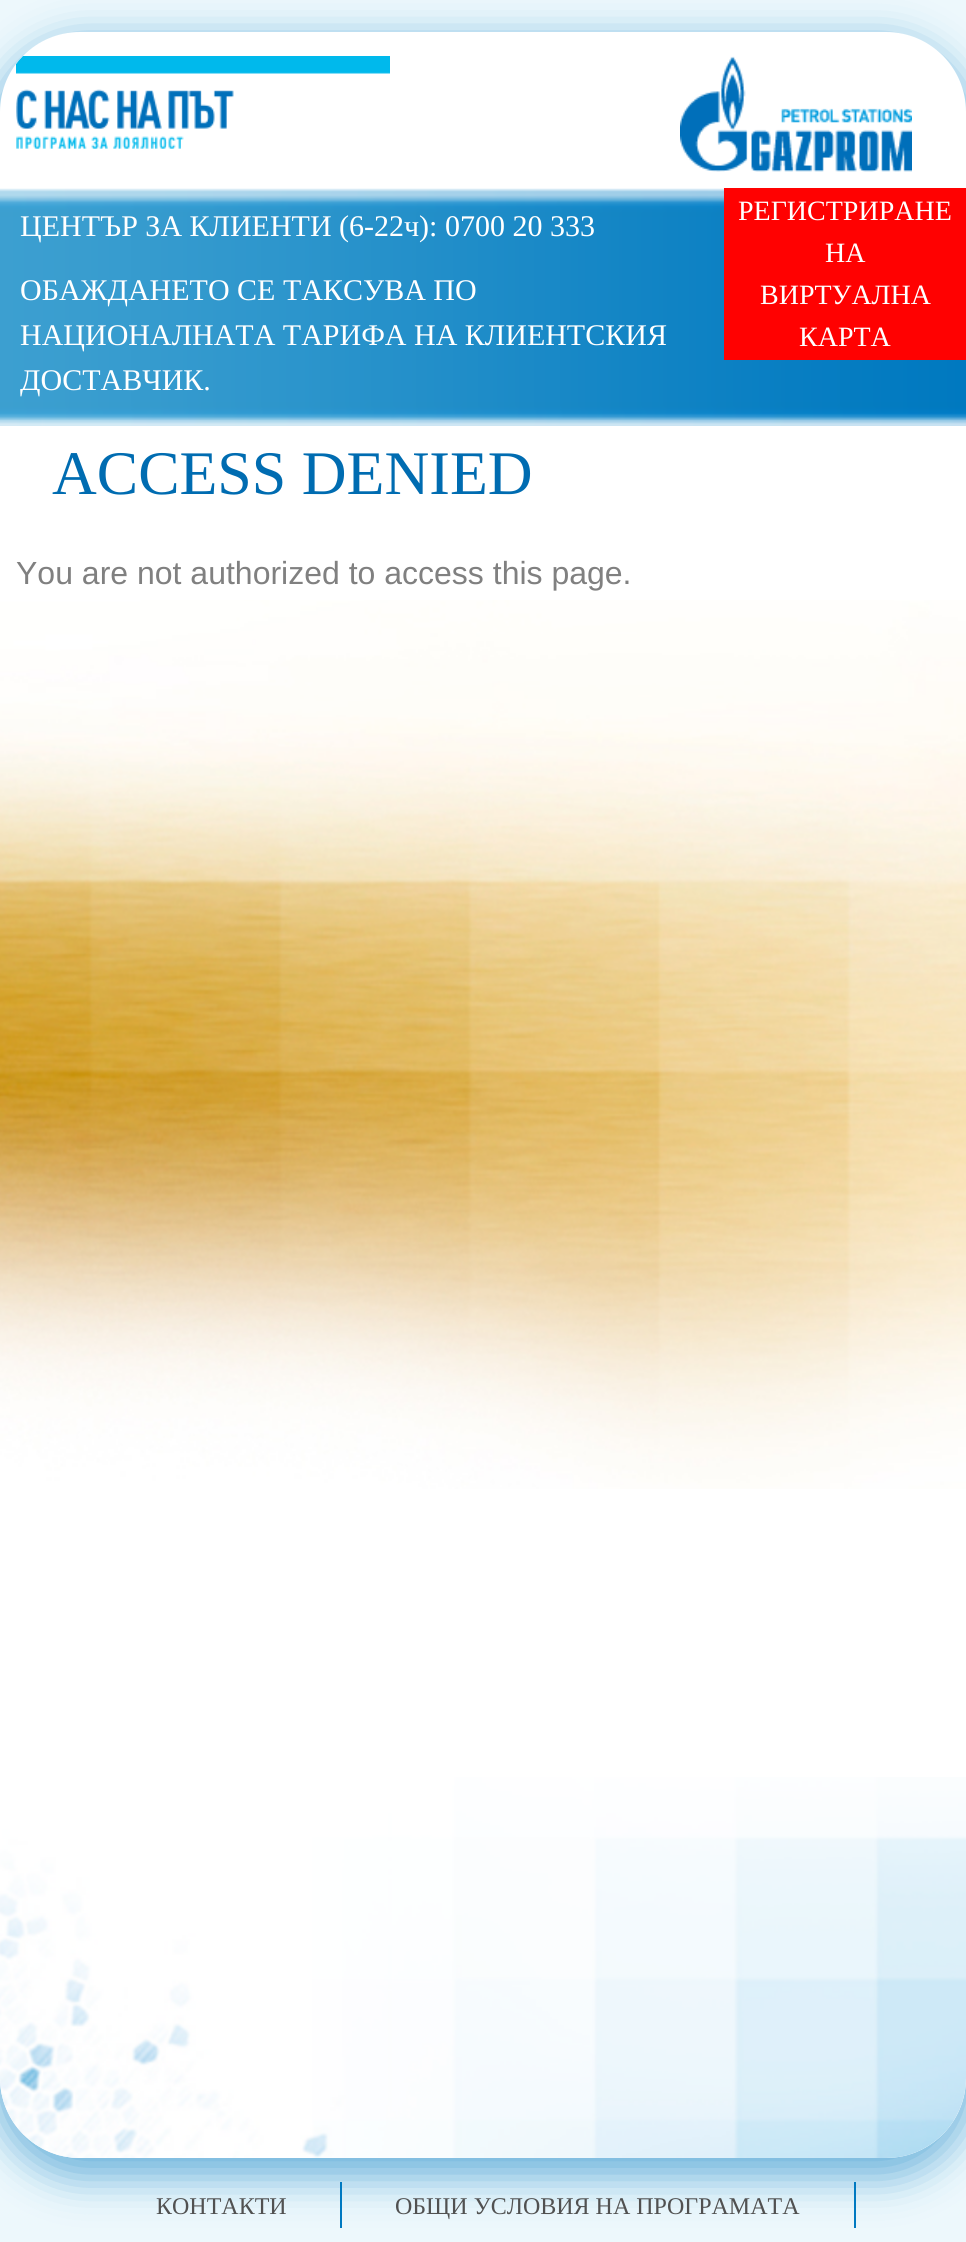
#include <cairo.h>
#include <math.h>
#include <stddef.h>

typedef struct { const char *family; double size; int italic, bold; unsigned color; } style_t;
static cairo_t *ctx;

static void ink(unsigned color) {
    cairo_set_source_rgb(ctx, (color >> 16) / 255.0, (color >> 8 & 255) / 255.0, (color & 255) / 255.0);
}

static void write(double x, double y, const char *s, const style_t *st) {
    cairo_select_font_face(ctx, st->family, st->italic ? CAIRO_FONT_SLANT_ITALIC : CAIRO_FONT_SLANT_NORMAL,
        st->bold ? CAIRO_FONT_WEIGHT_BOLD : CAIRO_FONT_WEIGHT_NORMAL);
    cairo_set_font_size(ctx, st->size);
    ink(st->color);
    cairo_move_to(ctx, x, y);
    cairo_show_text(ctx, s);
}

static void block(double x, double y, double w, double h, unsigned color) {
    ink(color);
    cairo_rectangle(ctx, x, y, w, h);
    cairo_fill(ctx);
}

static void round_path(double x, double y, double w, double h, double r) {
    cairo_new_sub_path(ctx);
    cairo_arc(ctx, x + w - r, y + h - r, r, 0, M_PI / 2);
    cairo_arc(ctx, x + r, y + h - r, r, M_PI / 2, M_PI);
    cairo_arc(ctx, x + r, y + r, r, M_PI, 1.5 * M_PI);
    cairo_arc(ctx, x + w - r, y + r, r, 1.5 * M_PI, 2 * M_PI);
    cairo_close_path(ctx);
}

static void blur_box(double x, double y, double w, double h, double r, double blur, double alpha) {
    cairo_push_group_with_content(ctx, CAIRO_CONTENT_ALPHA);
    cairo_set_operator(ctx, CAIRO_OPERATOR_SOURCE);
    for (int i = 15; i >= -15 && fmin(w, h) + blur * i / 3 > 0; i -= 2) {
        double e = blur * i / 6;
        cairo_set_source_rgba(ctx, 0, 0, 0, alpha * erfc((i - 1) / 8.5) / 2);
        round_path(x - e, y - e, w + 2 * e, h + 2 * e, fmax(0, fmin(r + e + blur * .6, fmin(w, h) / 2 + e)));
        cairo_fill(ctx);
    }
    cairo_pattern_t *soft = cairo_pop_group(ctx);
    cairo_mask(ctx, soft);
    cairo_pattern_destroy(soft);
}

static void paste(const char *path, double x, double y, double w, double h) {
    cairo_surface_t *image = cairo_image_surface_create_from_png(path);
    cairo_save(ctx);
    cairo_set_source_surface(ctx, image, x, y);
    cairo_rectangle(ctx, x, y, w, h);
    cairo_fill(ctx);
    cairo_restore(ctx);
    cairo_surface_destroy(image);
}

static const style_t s1 = {"Liberation Serif", 30, 0, 0, 0xffffff};
static const style_t s2 = {"Liberation Serif", 28, 0, 0, 0xffffff};
static const style_t s3 = {"Liberation Serif", 62, 0, 0, 0x006cb1};
static const style_t s4 = {"Liberation Sans", 32, 0, 0, 0x808080};
static const style_t s5 = {"Liberation Serif", 24, 0, 0, 0x515151};

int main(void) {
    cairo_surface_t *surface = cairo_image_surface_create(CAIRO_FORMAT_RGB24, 966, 2242);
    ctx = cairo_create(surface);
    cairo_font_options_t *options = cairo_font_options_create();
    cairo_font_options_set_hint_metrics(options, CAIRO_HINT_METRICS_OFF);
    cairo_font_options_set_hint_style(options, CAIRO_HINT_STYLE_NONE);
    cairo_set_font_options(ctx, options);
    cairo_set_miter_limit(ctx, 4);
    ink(0xedf8fc);
    cairo_paint(ctx);
    ink(0x0079c0);
    blur_box(-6, 40, 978, 2138, 86, 20, 0.53);
    ink(0xffffff);
    round_path(0, 32, 966, 2126, 80);
    cairo_fill(ctx);
    paste("pic1.png", 0, 1777, 966, 381);
    paste("pic2.png", 16, 56, 374, 93);
    paste("pic3.png", 680, 56, 232, 116);
    paste("pic4.png", 0, 188, 966, 238);
    write(20, 236, "ЦЕНТЪР ЗА КЛИЕНТИ (6-22ч): 0700 20 333", &s1);
    write(20, 300, "ОБАЖДАНЕТО СЕ ТАКСУВА ПО", &s1);
    write(20, 345, "НАЦИОНАЛНАТА ТАРИФА НА КЛИЕНТСКИЯ", &s1);
    write(20, 390, "ДОСТАВЧИК.", &s1);
    block(724, 188, 242, 172, 0xff0101);
    write(738, 220, "РЕГИСТРИРАНЕ", &s2);
    write(825, 262, "НА", &s2);
    write(760, 304, "ВИРТУАЛНА", &s2);
    write(799, 346, "КАРТА", &s2);
    paste("pic5.png", 0, 600, 966, 889);
    write(52, 494, "ACCESS DENIED", &s3);
    write(16, 584, "You are not authorized to access this page.", &s4);
    write(156, 2214, "КОНТАКТИ", &s5);
    block(340, 2182, 2, 46, 0x0079c1);
    write(395, 2214, "ОБЩИ УСЛОВИЯ НА ПРОГРАМАТА", &s5);
    block(854, 2182, 2, 46, 0x0079c1);
    cairo_surface_write_to_png(surface, "screenshot.png");
    cairo_font_options_destroy(options);
    cairo_destroy(ctx);
    cairo_surface_destroy(surface);
    return 0;
}
